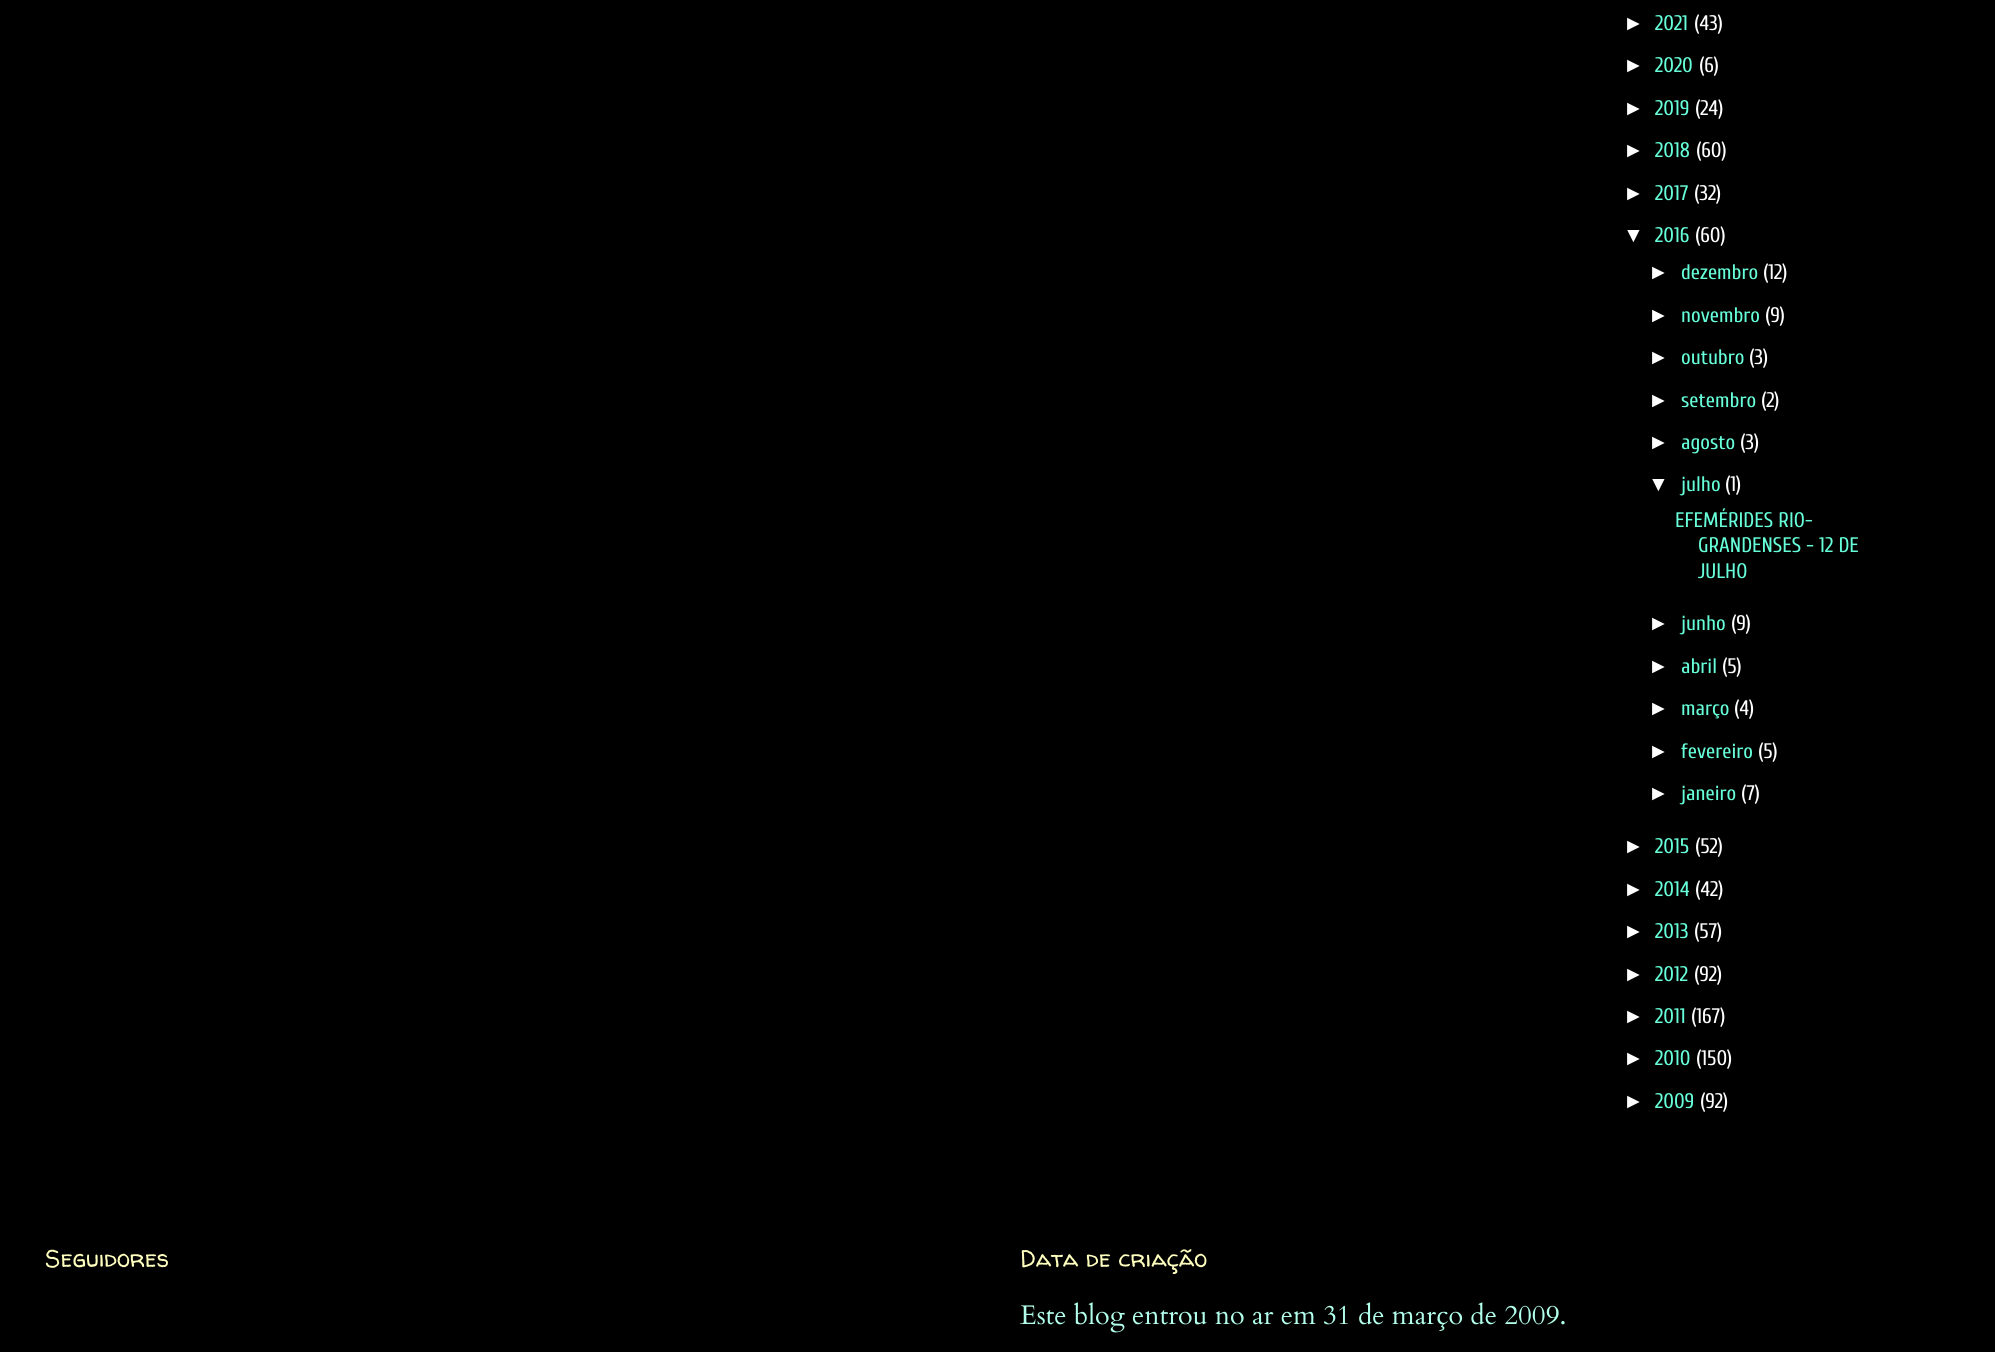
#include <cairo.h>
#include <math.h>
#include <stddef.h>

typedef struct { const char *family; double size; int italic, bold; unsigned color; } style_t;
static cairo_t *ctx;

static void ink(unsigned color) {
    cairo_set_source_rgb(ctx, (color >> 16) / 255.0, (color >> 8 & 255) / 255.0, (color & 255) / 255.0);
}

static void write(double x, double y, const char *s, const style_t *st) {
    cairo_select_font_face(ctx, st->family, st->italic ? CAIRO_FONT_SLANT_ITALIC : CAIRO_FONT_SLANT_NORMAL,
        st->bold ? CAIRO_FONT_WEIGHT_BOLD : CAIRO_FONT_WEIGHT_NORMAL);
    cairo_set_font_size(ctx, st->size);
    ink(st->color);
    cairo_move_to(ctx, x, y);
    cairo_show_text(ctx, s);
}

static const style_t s1 = {"Liberation Sans", 21, 0, 0, 0xffffff};
static const style_t s2 = {"Cuprum", 21, 0, 0, 0x66ffd9};
static const style_t s3 = {"Cuprum", 21, 0, 0, 0xffffff};
static const style_t s4 = {"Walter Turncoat", 24, 0, 0, 0xffffbf};
static const style_t s5 = {"Cardo", 27, 0, 0, 0xb2ffec};

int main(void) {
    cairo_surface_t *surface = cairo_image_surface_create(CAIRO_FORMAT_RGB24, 1995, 1352);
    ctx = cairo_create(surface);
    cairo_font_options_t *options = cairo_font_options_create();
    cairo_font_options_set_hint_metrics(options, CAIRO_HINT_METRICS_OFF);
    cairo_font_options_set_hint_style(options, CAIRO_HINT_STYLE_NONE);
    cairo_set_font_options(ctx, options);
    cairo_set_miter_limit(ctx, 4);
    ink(0x000000);
    cairo_paint(ctx);
    write(1623, 30, "►", &s1);
    write(1655, 30, "2021", &s2);
    write(1694, 30, "(43)", &s3);
    write(1623, 72, "►", &s1);
    write(1655, 72, "2020", &s2);
    write(1699, 72, "(6)", &s3);
    write(1623, 115, "►", &s1);
    write(1655, 115, "2019", &s2);
    write(1695, 115, "(24)", &s3);
    write(1623, 157, "►", &s1);
    write(1655, 157, "2018", &s2);
    write(1696, 157, "(60)", &s3);
    write(1623, 200, "►", &s1);
    write(1655, 200, "2017", &s2);
    write(1694, 200, "(32)", &s3);
    write(1623, 242, "▼", &s1);
    write(1655, 242, "2016", &s2);
    write(1695, 242, "(60)", &s3);
    write(1648, 279, "►", &s1);
    write(1681, 279, "dezembro", &s2);
    write(1763, 279, "(12)", &s3);
    write(1648, 322, "►", &s1);
    write(1681, 322, "novembro", &s2);
    write(1765, 322, "(9)", &s3);
    write(1648, 364, "►", &s1);
    write(1681, 364, "outubro", &s2);
    write(1749, 364, "(3)", &s3);
    write(1648, 407, "►", &s1);
    write(1681, 407, "setembro", &s2);
    write(1761, 407, "(2)", &s3);
    write(1648, 449, "►", &s1);
    write(1681, 449, "agosto", &s2);
    write(1740, 449, "(3)", &s3);
    write(1648, 491, "▼", &s1);
    write(1681, 491, "julho", &s2);
    write(1725, 491, "(1)", &s3);
    write(1675, 527, "EFEMÉRIDES RIO-", &s2);
    write(1698, 552, "GRANDENSES - 12 DE", &s2);
    write(1698, 578, "JULHO", &s2);
    write(1648, 630, "►", &s1);
    write(1681, 630, "junho", &s2);
    write(1731, 630, "(9)", &s3);
    write(1648, 673, "►", &s1);
    write(1681, 673, "abril", &s2);
    write(1722, 673, "(5)", &s3);
    write(1648, 715, "►", &s1);
    write(1681, 715, "março", &s2);
    write(1734, 715, "(4)", &s3);
    write(1648, 758, "►", &s1);
    write(1681, 758, "fevereiro", &s2);
    write(1758, 758, "(5)", &s3);
    write(1648, 800, "►", &s1);
    write(1681, 800, "janeiro", &s2);
    write(1741, 800, "(7)", &s3);
    write(1623, 853, "►", &s1);
    write(1655, 853, "2015", &s2);
    write(1695, 853, "(52)", &s3);
    write(1623, 896, "►", &s1);
    write(1655, 896, "2014", &s2);
    write(1695, 896, "(42)", &s3);
    write(1623, 938, "►", &s1);
    write(1655, 938, "2013", &s2);
    write(1694, 938, "(57)", &s3);
    write(1623, 981, "►", &s1);
    write(1655, 981, "2012", &s2);
    write(1694, 981, "(92)", &s3);
    write(1623, 1023, "►", &s1);
    write(1655, 1023, "2011", &s2);
    write(1691, 1023, "(167)", &s3);
    write(1623, 1065, "►", &s1);
    write(1655, 1065, "2010", &s2);
    write(1696, 1065, "(150)", &s3);
    write(1623, 1108, "►", &s1);
    write(1655, 1108, "2009", &s2);
    write(1700, 1108, "(92)", &s3);
    write(45, 1267, "Seguidores", &s4);
    write(1020, 1267, "Data de criação", &s4);
    write(1020, 1324, "Este blog entrou no ar em 31 de março de 2009.", &s5);
    cairo_surface_write_to_png(surface, "screenshot.png");
    cairo_font_options_destroy(options);
    cairo_destroy(ctx);
    cairo_surface_destroy(surface);
    return 0;
}
